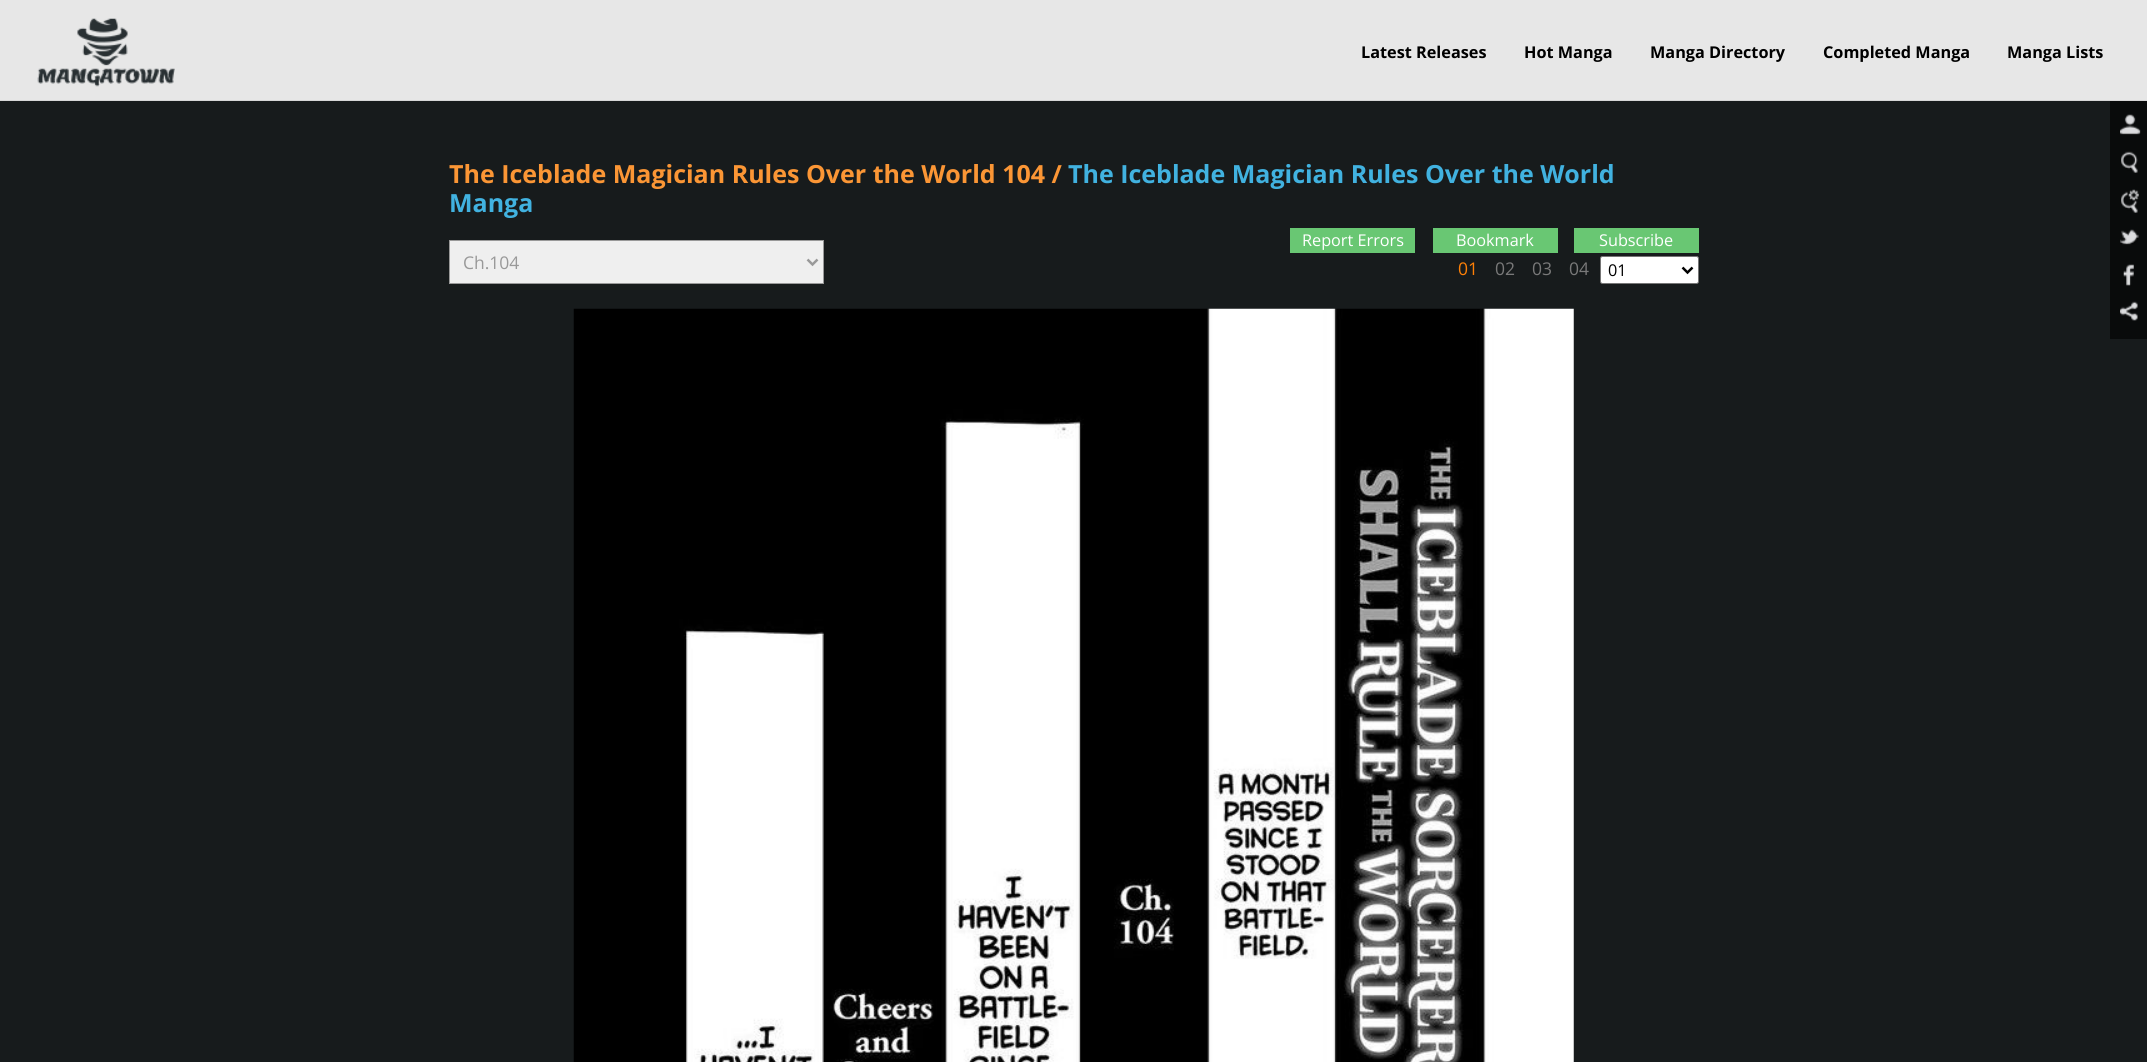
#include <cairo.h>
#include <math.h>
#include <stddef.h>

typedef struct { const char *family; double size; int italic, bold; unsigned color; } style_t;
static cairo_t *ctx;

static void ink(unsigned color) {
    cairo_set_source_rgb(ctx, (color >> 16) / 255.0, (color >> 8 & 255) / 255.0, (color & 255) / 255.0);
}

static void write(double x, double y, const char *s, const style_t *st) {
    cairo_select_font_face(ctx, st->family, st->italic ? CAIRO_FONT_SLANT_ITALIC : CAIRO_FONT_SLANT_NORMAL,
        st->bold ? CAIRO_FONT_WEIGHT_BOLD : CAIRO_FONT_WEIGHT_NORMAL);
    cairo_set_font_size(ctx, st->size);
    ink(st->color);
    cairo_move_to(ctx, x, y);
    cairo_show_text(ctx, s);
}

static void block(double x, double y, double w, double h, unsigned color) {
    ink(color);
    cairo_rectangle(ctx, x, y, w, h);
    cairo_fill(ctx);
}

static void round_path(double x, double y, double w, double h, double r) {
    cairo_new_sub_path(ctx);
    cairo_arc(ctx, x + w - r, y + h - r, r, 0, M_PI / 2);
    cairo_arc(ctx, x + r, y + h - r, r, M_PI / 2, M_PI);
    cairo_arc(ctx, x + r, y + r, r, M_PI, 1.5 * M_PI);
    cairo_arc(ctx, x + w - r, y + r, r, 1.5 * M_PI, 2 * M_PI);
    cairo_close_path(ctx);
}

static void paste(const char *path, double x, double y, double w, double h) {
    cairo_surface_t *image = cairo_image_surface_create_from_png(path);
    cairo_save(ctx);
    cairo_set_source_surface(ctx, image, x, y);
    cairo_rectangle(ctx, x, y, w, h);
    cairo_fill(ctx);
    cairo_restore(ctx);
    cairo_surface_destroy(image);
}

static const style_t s1 = {"Open Sans", 16.25, 0, 1, 0x000000};
static const style_t s2 = {"Open Sans", 25, 0, 1, 0xfb9635};
static const style_t s3 = {"Open Sans", 25, 0, 1, 0x41b2e0};
static const style_t s4 = {"Open Sans", 16.25, 0, 0, 0xffffff};
static const style_t s5 = {"Open Sans", 17.5, 0, 0, 0x999999};
static const style_t s6 = {"Open Sans", 17.5, 0, 0, 0xfe8006};
static const style_t s7 = {"Open Sans", 17.5, 0, 0, 0x797979};
static const style_t s8 = {"Open Sans", 16.25, 0, 0, 0x000000};

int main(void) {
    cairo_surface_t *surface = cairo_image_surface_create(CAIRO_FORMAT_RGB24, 2147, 1062);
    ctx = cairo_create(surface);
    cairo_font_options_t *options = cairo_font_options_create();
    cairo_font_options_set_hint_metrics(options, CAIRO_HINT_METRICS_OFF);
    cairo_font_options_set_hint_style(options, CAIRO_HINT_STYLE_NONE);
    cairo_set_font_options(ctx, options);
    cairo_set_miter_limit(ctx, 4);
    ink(0xe7e7e7);
    cairo_paint(ctx);
    block(0, 100, 2147, 1, 0xd7d7d7);
    paste("pic1.png", 37, 18, 138, 69);
    write(1361, 58, "Latest Releases", &s1);
    write(1524, 58, "Hot Manga", &s1);
    write(1650, 58, "Manga Directory", &s1);
    write(1823, 58, "Completed Manga", &s1);
    write(2007, 58, "Manga Lists", &s1);
    block(0, 101, 2147, 961, 0x171b1c);
    write(449, 183, "The Iceblade Magician Rules Over the World 104 /", &s2);
    write(1068, 183, "The Iceblade Magician Rules Over the World", &s3);
    write(449, 212, "Manga", &s3);
    block(1290, 228, 125, 25, 0x69c773);
    write(1302, 246, "Report Errors", &s4);
    block(1433, 228, 125, 25, 0x69c773);
    write(1456, 246, "Bookmark", &s4);
    block(1574, 228, 125, 25, 0x69c773);
    write(1599, 246, "Subscribe", &s4);
    ink(0xefefef);
    cairo_rectangle(ctx, 449.5, 240.5, 374, 43);
    cairo_fill_preserve(ctx);
    ink(0x999999);
    cairo_set_line_width(ctx, 1);
    cairo_stroke(ctx);
    cairo_new_path(ctx);
    cairo_move_to(ctx, 807.5, 259.5);
    cairo_line_to(ctx, 812.5, 264.5);
    cairo_line_to(ctx, 817.5, 259.5);
    cairo_set_line_width(ctx, 2.5);
    cairo_stroke(ctx);
    write(463, 269, "Ch.104", &s5);
    write(1458, 275, "01", &s6);
    write(1495, 275, "02", &s7);
    write(1532, 275, "03", &s7);
    write(1569, 275, "04", &s7);
    ink(0xffffff);
    round_path(1600.5, 256.5, 98, 27, 2);
    cairo_fill_preserve(ctx);
    ink(0x767676);
    cairo_set_line_width(ctx, 1);
    cairo_stroke(ctx);
    cairo_new_path(ctx);
    cairo_move_to(ctx, 1682.5, 267.5);
    cairo_line_to(ctx, 1687.5, 272.5);
    cairo_line_to(ctx, 1692.5, 267.5);
    ink(0x000000);
    cairo_set_line_width(ctx, 2.5);
    cairo_stroke(ctx);
    write(1608, 276, "01", &s8);
    paste("pic2.png", 573, 308, 1001, 754);
    block(2110, 101, 37, 238, 0x090b0b);
    paste("pic3.png", 2120, 114, 21, 21);
    paste("pic4.png", 2121, 151, 17, 22);
    paste("pic5.png", 2121, 189, 18, 24);
    paste("pic6.png", 2120, 229, 19, 16);
    paste("pic7.png", 2123, 264, 11, 22);
    paste("pic8.png", 2120, 301, 18, 20);
    cairo_surface_write_to_png(surface, "screenshot.png");
    cairo_font_options_destroy(options);
    cairo_destroy(ctx);
    cairo_surface_destroy(surface);
    return 0;
}
